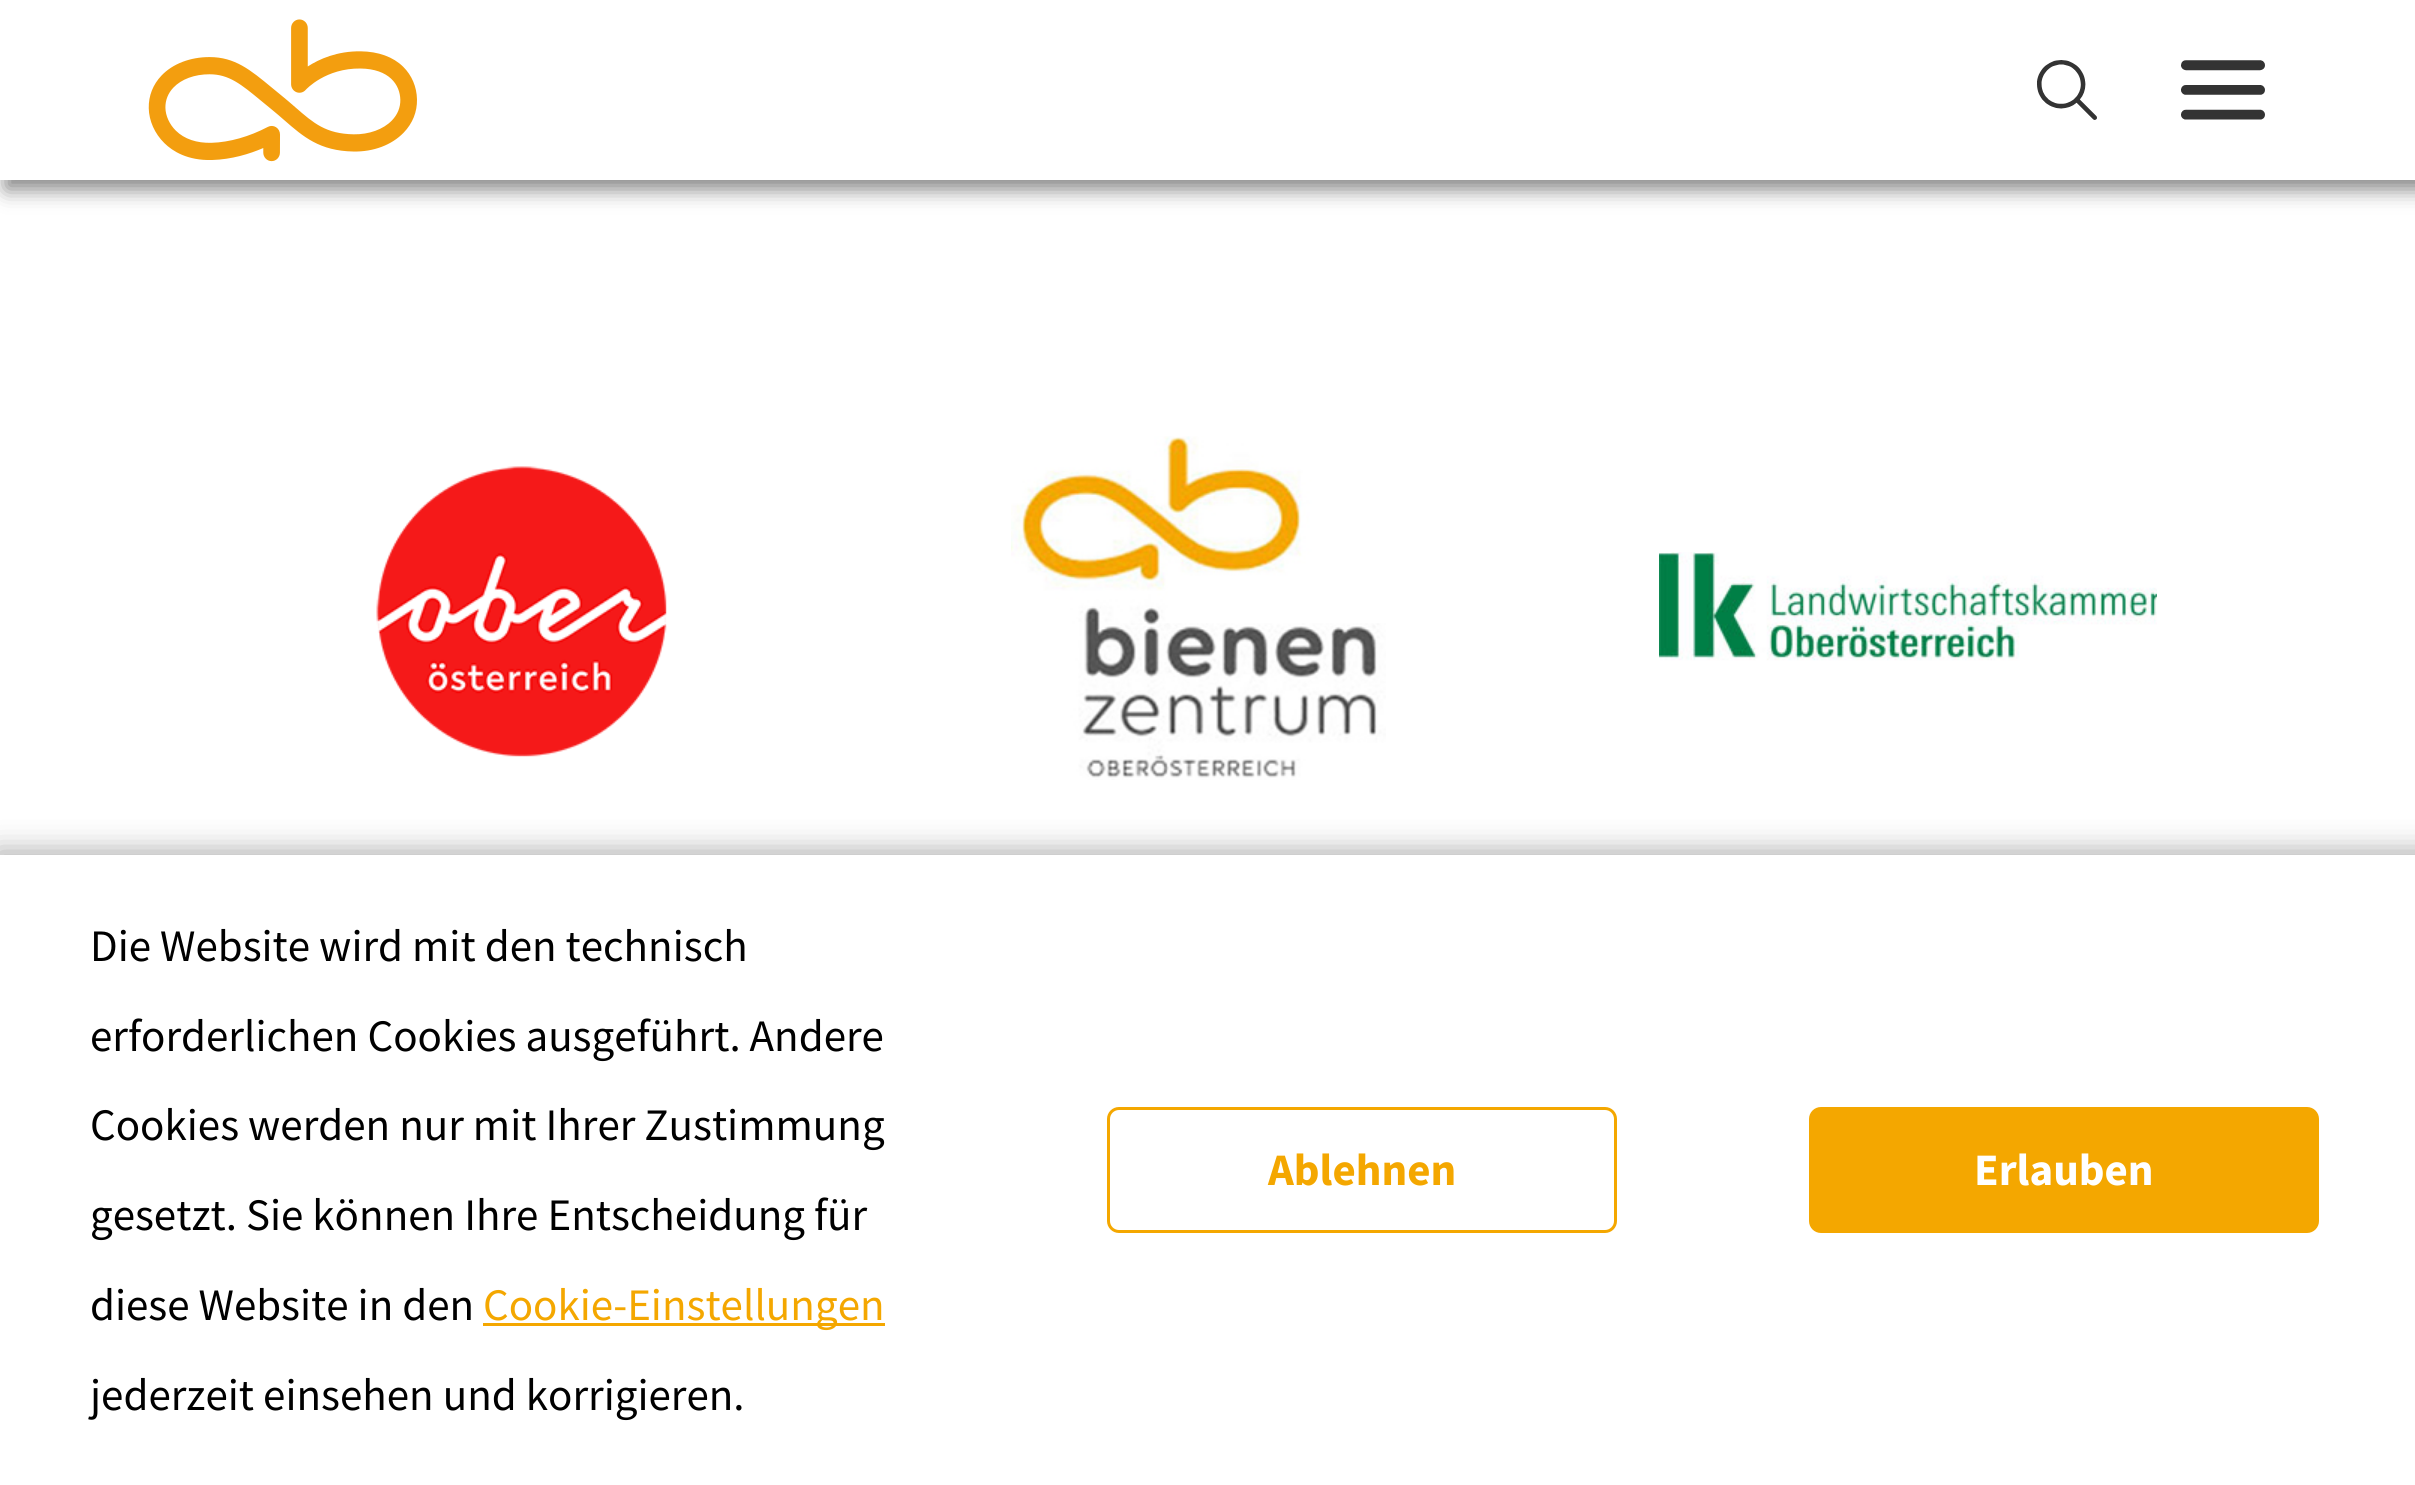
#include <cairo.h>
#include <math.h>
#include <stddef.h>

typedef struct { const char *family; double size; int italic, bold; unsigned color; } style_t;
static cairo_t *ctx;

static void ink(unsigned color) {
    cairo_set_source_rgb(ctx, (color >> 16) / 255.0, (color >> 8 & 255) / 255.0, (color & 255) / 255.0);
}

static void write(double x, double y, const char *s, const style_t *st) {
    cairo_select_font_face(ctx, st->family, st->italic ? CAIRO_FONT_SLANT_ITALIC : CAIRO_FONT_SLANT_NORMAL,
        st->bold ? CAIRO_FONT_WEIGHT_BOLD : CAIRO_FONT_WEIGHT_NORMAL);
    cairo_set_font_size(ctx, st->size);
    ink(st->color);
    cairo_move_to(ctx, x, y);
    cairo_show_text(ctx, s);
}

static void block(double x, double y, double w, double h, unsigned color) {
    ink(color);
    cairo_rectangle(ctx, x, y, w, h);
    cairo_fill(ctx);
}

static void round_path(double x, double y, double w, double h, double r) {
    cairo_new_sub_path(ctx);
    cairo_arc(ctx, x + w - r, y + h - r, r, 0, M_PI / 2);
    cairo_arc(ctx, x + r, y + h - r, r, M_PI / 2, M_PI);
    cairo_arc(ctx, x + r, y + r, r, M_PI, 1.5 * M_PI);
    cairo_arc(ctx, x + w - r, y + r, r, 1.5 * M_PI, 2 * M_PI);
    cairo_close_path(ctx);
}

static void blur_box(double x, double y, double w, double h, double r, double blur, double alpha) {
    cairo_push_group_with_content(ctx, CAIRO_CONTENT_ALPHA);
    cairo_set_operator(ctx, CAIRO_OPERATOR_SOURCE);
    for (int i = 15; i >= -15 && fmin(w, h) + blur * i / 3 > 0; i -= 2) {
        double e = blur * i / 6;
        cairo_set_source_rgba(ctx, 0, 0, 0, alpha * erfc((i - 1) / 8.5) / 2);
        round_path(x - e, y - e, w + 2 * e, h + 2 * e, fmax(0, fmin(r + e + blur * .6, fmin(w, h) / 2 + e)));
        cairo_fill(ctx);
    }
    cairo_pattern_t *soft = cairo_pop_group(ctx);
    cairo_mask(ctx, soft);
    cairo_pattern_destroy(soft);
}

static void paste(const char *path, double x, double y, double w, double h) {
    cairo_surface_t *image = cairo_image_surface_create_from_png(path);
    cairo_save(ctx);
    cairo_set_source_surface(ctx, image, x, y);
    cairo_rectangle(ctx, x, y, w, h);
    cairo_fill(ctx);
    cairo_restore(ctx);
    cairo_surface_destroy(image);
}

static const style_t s1 = {"Source Sans Pro", 45, 0, 0, 0x000000};
static const style_t s2 = {"Source Sans Pro", 45, 0, 0, 0xf4a700};
static const style_t s3 = {"Source Sans Pro", 45, 0, 1, 0xf4a700};
static const style_t s4 = {"Source Sans Pro", 45, 0, 1, 0xffffff};

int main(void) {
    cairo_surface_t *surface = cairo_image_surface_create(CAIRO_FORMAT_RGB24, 2415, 1485);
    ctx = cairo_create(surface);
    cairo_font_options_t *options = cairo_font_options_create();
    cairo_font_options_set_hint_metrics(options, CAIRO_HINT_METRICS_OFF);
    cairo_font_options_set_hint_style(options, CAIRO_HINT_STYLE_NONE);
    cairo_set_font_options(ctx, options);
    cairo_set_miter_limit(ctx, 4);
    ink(0xffffff);
    cairo_paint(ctx);
    ink(0x000000);
    blur_box(6, 9, 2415, 180, 0, 10.5, 0.5);
    block(0, 0, 2415, 180, 0xffffff);
    paste("pic1.png", 148, 19, 269, 143);
    paste("pic2.png", 2037, 60, 60, 60);
    paste("pic3.png", 2181, 60, 84, 60);
    paste("pic4.png", 376, 466, 291, 291);
    paste("pic5.png", 1011, 436, 375, 344);
    paste("pic6.png", 1659, 552, 498, 109);
    ink(0x000000);
    blur_box(-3, 852, 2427, 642, 0, 15, 0.35);
    block(0, 855, 2415, 630, 0xffffff);
    write(90, 961, "Die Website wird mit den technisch", &s1);
    write(90, 1051, "erforderlichen Cookies ausgeführt. Andere", &s1);
    write(90, 1140, "Cookies werden nur mit Ihrer Zustimmung", &s1);
    write(90, 1230, "gesetzt. Sie können Ihre Entscheidung für", &s1);
    write(90, 1320, "diese Website in den", &s1);
    block(483, 1323, 402, 3, 0xf4a700);
    write(483, 1320, "Cookie-Einstellungen", &s2);
    write(90, 1410, "jederzeit einsehen und korrigieren.", &s1);
    round_path(1108.5, 1108.5, 507, 123, 10.5);
    ink(0xf4a700);
    cairo_set_line_width(ctx, 3);
    cairo_stroke(ctx);
    write(1268, 1185, "Ablehnen", &s3);
    round_path(1810.5, 1108.5, 507, 123, 10.5);
    cairo_fill_preserve(ctx);
    cairo_stroke(ctx);
    write(1974, 1185, "Erlauben", &s4);
    cairo_surface_write_to_png(surface, "screenshot.png");
    cairo_font_options_destroy(options);
    cairo_destroy(ctx);
    cairo_surface_destroy(surface);
    return 0;
}
